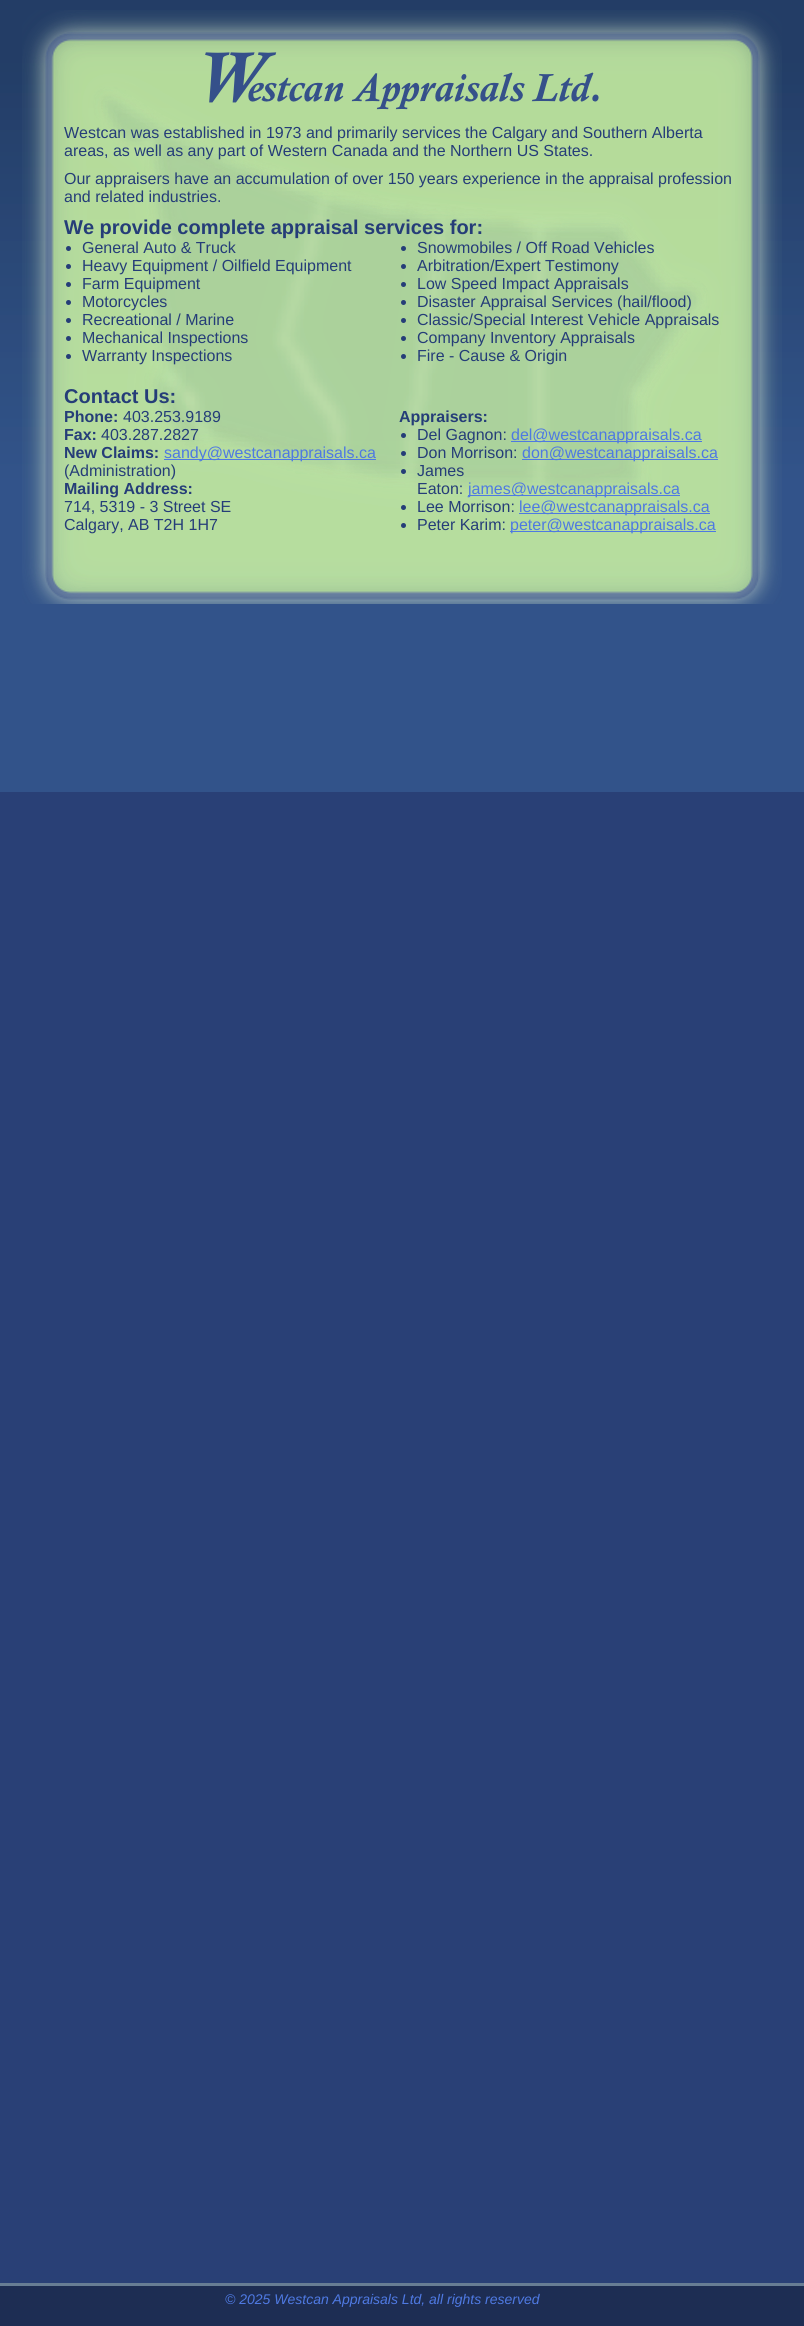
#include <cairo.h>
#include <math.h>
#include <stddef.h>

typedef struct { const char *family; double size; int italic, bold; unsigned color; } style_t;
static cairo_t *ctx;

static void ink(unsigned color) {
    cairo_set_source_rgb(ctx, (color >> 16) / 255.0, (color >> 8 & 255) / 255.0, (color & 255) / 255.0);
}

static void write(double x, double y, const char *s, const style_t *st) {
    cairo_select_font_face(ctx, st->family, st->italic ? CAIRO_FONT_SLANT_ITALIC : CAIRO_FONT_SLANT_NORMAL,
        st->bold ? CAIRO_FONT_WEIGHT_BOLD : CAIRO_FONT_WEIGHT_NORMAL);
    cairo_set_font_size(ctx, st->size);
    ink(st->color);
    cairo_move_to(ctx, x, y);
    cairo_show_text(ctx, s);
}

static void block(double x, double y, double w, double h, unsigned color) {
    ink(color);
    cairo_rectangle(ctx, x, y, w, h);
    cairo_fill(ctx);
}

static void paste(const char *path, double x, double y, double w, double h) {
    cairo_surface_t *image = cairo_image_surface_create_from_png(path);
    cairo_save(ctx);
    cairo_set_source_surface(ctx, image, x, y);
    cairo_rectangle(ctx, x, y, w, h);
    cairo_fill(ctx);
    cairo_restore(ctx);
    cairo_surface_destroy(image);
}

static const style_t s1 = {"Liberation Sans", 16, 0, 0, 0x253d78};
static const style_t s2 = {"Liberation Sans", 20, 0, 1, 0x253d78};
static const style_t s3 = {"Liberation Sans", 16, 0, 1, 0x253d78};
static const style_t s4 = {"Liberation Sans", 16, 0, 0, 0x4e79e2};
static const style_t s5 = {"Liberation Sans", 14, 1, 0, 0x4e79e2};

int main(void) {
    cairo_surface_t *surface = cairo_image_surface_create(CAIRO_FORMAT_RGB24, 804, 2326);
    ctx = cairo_create(surface);
    cairo_font_options_t *options = cairo_font_options_create();
    cairo_font_options_set_hint_metrics(options, CAIRO_HINT_METRICS_OFF);
    cairo_font_options_set_hint_style(options, CAIRO_HINT_STYLE_NONE);
    cairo_set_font_options(ctx, options);
    cairo_set_miter_limit(ctx, 4);
    ink(0x294076);
    cairo_paint(ctx);
    paste("pic1.png", 0, 0, 804, 792);
    paste("pic2.png", 22, 10, 760, 594);
    paste("pic3.png", 205, 52, 394, 58);
    write(64, 138, "Westcan was established in 1973 and primarily services the Calgary and Southern Alberta", &s1);
    write(64, 156, "areas, as well as any part of Western Canada and the Northern US States.", &s1);
    write(64, 184, "Our appraisers have an accumulation of over 150 years experience in the appraisal profession", &s1);
    write(64, 202, "and related industries.", &s1);
    write(64, 234, "We provide complete appraisal services for:", &s2);
    cairo_new_path(ctx);
    cairo_arc(ctx, 68.5, 248.5, 2.5, 0, 2 * M_PI);
    cairo_fill(ctx);
    write(82, 253, "General Auto & Truck", &s1);
    cairo_new_path(ctx);
    cairo_arc(ctx, 68.5, 266.5, 2.5, 0, 2 * M_PI);
    cairo_fill(ctx);
    write(82, 271, "Heavy Equipment / Oilfield Equipment", &s1);
    cairo_new_path(ctx);
    cairo_arc(ctx, 68.5, 284.5, 2.5, 0, 2 * M_PI);
    cairo_fill(ctx);
    write(82, 289, "Farm Equipment", &s1);
    cairo_new_path(ctx);
    cairo_arc(ctx, 68.5, 302.5, 2.5, 0, 2 * M_PI);
    cairo_fill(ctx);
    write(82, 307, "Motorcycles", &s1);
    cairo_new_path(ctx);
    cairo_arc(ctx, 68.5, 320.5, 2.5, 0, 2 * M_PI);
    cairo_fill(ctx);
    write(82, 325, "Recreational / Marine", &s1);
    cairo_new_path(ctx);
    cairo_arc(ctx, 68.5, 338.5, 2.5, 0, 2 * M_PI);
    cairo_fill(ctx);
    write(82, 343, "Mechanical Inspections", &s1);
    cairo_new_path(ctx);
    cairo_arc(ctx, 68.5, 356.5, 2.5, 0, 2 * M_PI);
    cairo_fill(ctx);
    write(82, 361, "Warranty Inspections", &s1);
    cairo_new_path(ctx);
    cairo_arc(ctx, 403.5, 248.5, 2.5, 0, 2 * M_PI);
    cairo_fill(ctx);
    write(417, 253, "Snowmobiles / Off Road Vehicles", &s1);
    cairo_new_path(ctx);
    cairo_arc(ctx, 403.5, 266.5, 2.5, 0, 2 * M_PI);
    cairo_fill(ctx);
    write(417, 271, "Arbitration/Expert Testimony", &s1);
    cairo_new_path(ctx);
    cairo_arc(ctx, 403.5, 284.5, 2.5, 0, 2 * M_PI);
    cairo_fill(ctx);
    write(417, 289, "Low Speed Impact Appraisals", &s1);
    cairo_new_path(ctx);
    cairo_arc(ctx, 403.5, 302.5, 2.5, 0, 2 * M_PI);
    cairo_fill(ctx);
    write(417, 307, "Disaster Appraisal Services (hail/flood)", &s1);
    cairo_new_path(ctx);
    cairo_arc(ctx, 403.5, 320.5, 2.5, 0, 2 * M_PI);
    cairo_fill(ctx);
    write(417, 325, "Classic/Special Interest Vehicle Appraisals", &s1);
    cairo_new_path(ctx);
    cairo_arc(ctx, 403.5, 338.5, 2.5, 0, 2 * M_PI);
    cairo_fill(ctx);
    write(417, 343, "Company Inventory Appraisals", &s1);
    cairo_new_path(ctx);
    cairo_arc(ctx, 403.5, 356.5, 2.5, 0, 2 * M_PI);
    cairo_fill(ctx);
    write(417, 361, "Fire - Cause & Origin", &s1);
    write(64, 403, "Contact Us:", &s2);
    write(64, 422, "Phone:", &s3);
    write(123, 422, "403.253.9189", &s1);
    write(64, 440, "Fax:", &s3);
    write(101, 440, "403.287.2827", &s1);
    write(64, 458, "New Claims:", &s3);
    block(164, 459, 212, 1, 0x4e79e2);
    write(164, 458, "sandy@westcanappraisals.ca", &s4);
    write(64, 476, "(Administration)", &s1);
    write(64, 494, "Mailing Address:", &s3);
    write(64, 512, "714, 5319 - 3 Street SE", &s1);
    write(64, 530, "Calgary, AB T2H 1H7", &s1);
    write(399, 422, "Appraisers:", &s3);
    cairo_new_path(ctx);
    cairo_arc(ctx, 403.5, 435.5, 2.5, 0, 2 * M_PI);
    cairo_fill(ctx);
    write(417, 440, "Del Gagnon:", &s1);
    block(511, 441, 191, 1, 0x4e79e2);
    write(511, 440, "del@westcanappraisals.ca", &s4);
    ink(0x253d78);
    cairo_new_path(ctx);
    cairo_arc(ctx, 403.5, 453.5, 2.5, 0, 2 * M_PI);
    cairo_fill(ctx);
    write(417, 458, "Don Morrison:", &s1);
    block(522, 459, 196, 1, 0x4e79e2);
    write(522, 458, "don@westcanappraisals.ca", &s4);
    ink(0x253d78);
    cairo_new_path(ctx);
    cairo_arc(ctx, 403.5, 471.5, 2.5, 0, 2 * M_PI);
    cairo_fill(ctx);
    write(417, 476, "James", &s1);
    write(417, 494, "Eaton:", &s1);
    block(468, 495, 212, 1, 0x4e79e2);
    write(468, 494, "james@westcanappraisals.ca", &s4);
    ink(0x253d78);
    cairo_new_path(ctx);
    cairo_arc(ctx, 403.5, 507.5, 2.5, 0, 2 * M_PI);
    cairo_fill(ctx);
    write(417, 512, "Lee Morrison:", &s1);
    block(519, 513, 191, 1, 0x4e79e2);
    write(519, 512, "lee@westcanappraisals.ca", &s4);
    ink(0x253d78);
    cairo_new_path(ctx);
    cairo_arc(ctx, 403.5, 525.5, 2.5, 0, 2 * M_PI);
    cairo_fill(ctx);
    write(417, 530, "Peter Karim:", &s1);
    block(510, 531, 206, 1, 0x4e79e2);
    write(510, 530, "peter@westcanappraisals.ca", &s4);
    block(0, 2286, 804, 40, 0x1d2d53);
    block(0, 2283, 804, 3, 0x677d94);
    write(225, 2304, "© 2025 Westcan Appraisals Ltd, all rights reserved", &s5);
    cairo_surface_write_to_png(surface, "screenshot.png");
    cairo_font_options_destroy(options);
    cairo_destroy(ctx);
    cairo_surface_destroy(surface);
    return 0;
}
